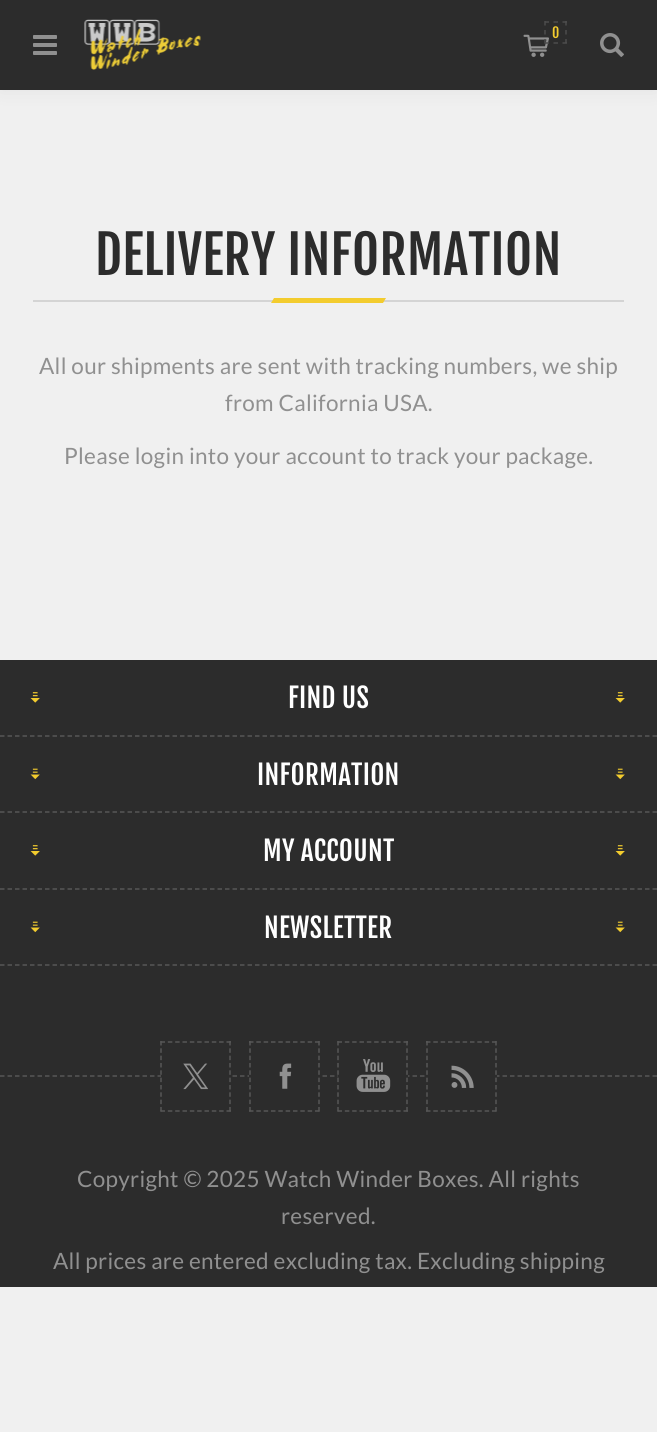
#include <cairo.h>
#include <math.h>
#include <stddef.h>

static cairo_t *ctx;

static void ink(unsigned color) {
    cairo_set_source_rgb(ctx, (color >> 16) / 255.0, (color >> 8 & 255) / 255.0, (color & 255) / 255.0);
}

static void write_spaced(double x, double y, const char *s, double letter, double word) {
    cairo_move_to(ctx, x, y);
    while (*s) {
        char ch[5] = {0};
        int n = 0;
        do ch[n++] = *s++; while ((*s & 0xC0) == 0x80);
        cairo_show_text(ctx, ch);
        cairo_rel_move_to(ctx, letter + word * (*ch == ' '), 0);
    }
}

static void block(double x, double y, double w, double h, unsigned color) {
    ink(color);
    cairo_rectangle(ctx, x, y, w, h);
    cairo_fill(ctx);
}

static void round_path(double x, double y, double w, double h, double r) {
    cairo_new_sub_path(ctx);
    cairo_arc(ctx, x + w - r, y + h - r, r, 0, M_PI / 2);
    cairo_arc(ctx, x + r, y + h - r, r, M_PI / 2, M_PI);
    cairo_arc(ctx, x + r, y + r, r, M_PI, 1.5 * M_PI);
    cairo_arc(ctx, x + w - r, y + r, r, 1.5 * M_PI, 2 * M_PI);
    cairo_close_path(ctx);
}

static void blur_box(double x, double y, double w, double h, double r, double blur, double alpha) {
    cairo_push_group_with_content(ctx, CAIRO_CONTENT_ALPHA);
    cairo_set_operator(ctx, CAIRO_OPERATOR_SOURCE);
    for (int i = 15; i >= -15 && fmin(w, h) + blur * i / 3 > 0; i -= 2) {
        double e = blur * i / 6;
        cairo_set_source_rgba(ctx, 0, 0, 0, alpha * erfc((i - 1) / 8.5) / 2);
        round_path(x - e, y - e, w + 2 * e, h + 2 * e, fmax(0, fmin(r + e + blur * .6, fmin(w, h) / 2 + e)));
        cairo_fill(ctx);
    }
    cairo_pattern_t *soft = cairo_pop_group(ctx);
    cairo_mask(ctx, soft);
    cairo_pattern_destroy(soft);
}

static void paste(const char *path, double x, double y, double w, double h) {
    cairo_surface_t *image = cairo_image_surface_create_from_png(path);
    cairo_save(ctx);
    cairo_set_source_surface(ctx, image, x, y);
    cairo_rectangle(ctx, x, y, w, h);
    cairo_fill(ctx);
    cairo_restore(ctx);
    cairo_surface_destroy(image);
}

int main(void) {
    cairo_surface_t *surface = cairo_image_surface_create(CAIRO_FORMAT_RGB24, 657, 1432);
    ctx = cairo_create(surface);
    cairo_font_options_t *options = cairo_font_options_create();
    cairo_font_options_set_hint_metrics(options, CAIRO_HINT_METRICS_OFF);
    cairo_font_options_set_hint_style(options, CAIRO_HINT_STYLE_NONE);
    cairo_set_font_options(ctx, options);
    cairo_set_miter_limit(ctx, 4);
    ink(0xf0f0f0);
    cairo_paint(ctx);
    ink(0x000000);
    blur_box(0, 0, 657, 90, 0, 10.5, 0.06);
    block(0, 0, 657, 90, 0x2c2c2c);
    paste("pic1.png", 33, 35, 24, 20);
    paste("pic2.png", 84, 19, 117, 51);
    paste("pic3.png", 523, 34, 26, 23);
    cairo_new_path(ctx);
    cairo_move_to(ctx, 544.5, 22);
    cairo_line_to(ctx, 549, 22);
    cairo_move_to(ctx, 553.5, 22);
    cairo_line_to(ctx, 558, 22);
    cairo_move_to(ctx, 562.5, 22);
    cairo_line_to(ctx, 567, 22);
    cairo_move_to(ctx, 566, 21);
    cairo_line_to(ctx, 566, 25.5);
    cairo_move_to(ctx, 566, 30);
    cairo_line_to(ctx, 566, 34.5);
    cairo_move_to(ctx, 566, 39);
    cairo_line_to(ctx, 566, 43.5);
    cairo_move_to(ctx, 544.5, 43);
    cairo_line_to(ctx, 549, 43);
    cairo_move_to(ctx, 553.5, 43);
    cairo_line_to(ctx, 558, 43);
    cairo_move_to(ctx, 562.5, 43);
    cairo_line_to(ctx, 567, 43);
    cairo_move_to(ctx, 545, 21);
    cairo_line_to(ctx, 545, 25.5);
    cairo_move_to(ctx, 545, 30);
    cairo_line_to(ctx, 545, 34.5);
    cairo_move_to(ctx, 545, 39);
    cairo_line_to(ctx, 545, 43.5);
    ink(0x4c4c4c);
    cairo_set_line_width(ctx, 1.5);
    cairo_stroke(ctx);
    cairo_select_font_face(ctx, "Fjalla One", CAIRO_FONT_SLANT_NORMAL, CAIRO_FONT_WEIGHT_NORMAL);
    cairo_set_font_size(ctx, 14);
    ink(0xf3cc2e);
    write_spaced(552, 38, "0", 0.3, 0);
    paste("pic4.png", 600, 33, 24, 24);
    block(33, 300, 591, 2, 0xd4d4d4);
    cairo_set_font_size(ctx, 52.5);
    ink(0x2c2c2c);
    write_spaced(95, 275, "DELIVERY INFORMATION", 0.3, 0);
    ink(0xf3cc2e);
    cairo_new_path(ctx);
    cairo_move_to(ctx, 274, 298);
    cairo_line_to(ctx, 386, 298);
    cairo_line_to(ctx, 383, 303);
    cairo_line_to(ctx, 271, 303);
    cairo_close_path(ctx);
    cairo_fill(ctx);
    cairo_select_font_face(ctx, "Lato", CAIRO_FONT_SLANT_NORMAL, CAIRO_FONT_WEIGHT_NORMAL);
    cairo_set_font_size(ctx, 22.5);
    ink(0x909090);
    write_spaced(39, 374, "All our shipments are sent with tracking numbers, we ship", 0.3, 0);
    write_spaced(225, 411, "from California USA.", 0.3, 0);
    write_spaced(64, 464, "Please login into your account to track your package.", 0.3, 0);
    block(0, 660, 657, 627, 0x2c2c2c);
    paste("pic5.png", 30, 692, 10, 11);
    cairo_select_font_face(ctx, "Fjalla One", CAIRO_FONT_SLANT_NORMAL, CAIRO_FONT_WEIGHT_NORMAL);
    cairo_set_font_size(ctx, 27);
    ink(0xffffff);
    write_spaced(288, 708, "FIND US", 0.3, 0);
    paste("pic5.png", 615, 692, 10, 11);
    cairo_new_path(ctx);
    cairo_move_to(ctx, 0, 736);
    cairo_line_to(ctx, 657, 736);
    ink(0x565656);
    cairo_set_dash(ctx, (double[]){4.5, 3}, 2, 0);
    cairo_stroke(ctx);
    paste("pic6.png", 30, 768, 10, 12);
    ink(0xffffff);
    write_spaced(257, 785, "INFORMATION", 0.3, 0);
    paste("pic6.png", 615, 768, 10, 12);
    cairo_new_path(ctx);
    cairo_move_to(ctx, 0, 812);
    cairo_line_to(ctx, 657, 812);
    ink(0x565656);
    cairo_stroke(ctx);
    paste("pic5.png", 30, 845, 10, 11);
    ink(0xffffff);
    write_spaced(263, 861, "MY ACCOUNT", 0.3, 0);
    paste("pic5.png", 615, 845, 10, 11);
    cairo_new_path(ctx);
    cairo_move_to(ctx, 0, 965);
    cairo_line_to(ctx, 657, 965);
    ink(0x565656);
    cairo_stroke(ctx);
    cairo_new_path(ctx);
    cairo_move_to(ctx, 0, 889);
    cairo_line_to(ctx, 657, 889);
    cairo_stroke(ctx);
    paste("pic6.png", 30, 921, 10, 12);
    ink(0xffffff);
    write_spaced(264, 938, "NEWSLETTER", 0.3, 0);
    paste("pic6.png", 615, 921, 10, 12);
    cairo_new_path(ctx);
    cairo_move_to(ctx, 0, 1076);
    cairo_line_to(ctx, 657, 1076);
    ink(0x565656);
    cairo_stroke(ctx);
    block(161, 1075, 69, 2, 0x2c2c2c);
    cairo_new_path(ctx);
    cairo_move_to(ctx, 160.5, 1042);
    cairo_line_to(ctx, 231, 1042);
    ink(0x565656);
    cairo_set_dash(ctx, (double[]){4.5, 2.83}, 2, 0);
    cairo_stroke(ctx);
    cairo_new_path(ctx);
    cairo_move_to(ctx, 230, 1041);
    cairo_line_to(ctx, 230, 1111.5);
    cairo_stroke(ctx);
    cairo_new_path(ctx);
    cairo_move_to(ctx, 160.5, 1111);
    cairo_line_to(ctx, 231, 1111);
    cairo_stroke(ctx);
    cairo_new_path(ctx);
    cairo_move_to(ctx, 161, 1041);
    cairo_line_to(ctx, 161, 1111.5);
    cairo_stroke(ctx);
    paste("pic7.png", 183, 1063, 25, 27);
    block(249, 1075, 71, 2, 0x2c2c2c);
    cairo_new_path(ctx);
    cairo_move_to(ctx, 249, 1042);
    cairo_line_to(ctx, 319.5, 1042);
    ink(0x565656);
    cairo_stroke(ctx);
    cairo_new_path(ctx);
    cairo_move_to(ctx, 319, 1041);
    cairo_line_to(ctx, 319, 1111.5);
    cairo_stroke(ctx);
    cairo_new_path(ctx);
    cairo_move_to(ctx, 249, 1111);
    cairo_line_to(ctx, 319.5, 1111);
    cairo_stroke(ctx);
    cairo_new_path(ctx);
    cairo_move_to(ctx, 250, 1041);
    cairo_line_to(ctx, 250, 1111.5);
    cairo_stroke(ctx);
    paste("pic8.png", 279, 1063, 13, 26);
    block(338, 1075, 70, 2, 0x2c2c2c);
    cairo_new_path(ctx);
    cairo_move_to(ctx, 337.5, 1042);
    cairo_line_to(ctx, 408, 1042);
    ink(0x565656);
    cairo_stroke(ctx);
    cairo_new_path(ctx);
    cairo_move_to(ctx, 407, 1041);
    cairo_line_to(ctx, 407, 1111.5);
    cairo_stroke(ctx);
    cairo_new_path(ctx);
    cairo_move_to(ctx, 337.5, 1111);
    cairo_line_to(ctx, 408, 1111);
    cairo_stroke(ctx);
    cairo_new_path(ctx);
    cairo_move_to(ctx, 338, 1041);
    cairo_line_to(ctx, 338, 1111.5);
    cairo_stroke(ctx);
    paste("pic9.png", 356, 1059, 35, 33);
    block(427, 1075, 70, 2, 0x2c2c2c);
    cairo_new_path(ctx);
    cairo_move_to(ctx, 426, 1042);
    cairo_line_to(ctx, 496.5, 1042);
    ink(0x565656);
    cairo_stroke(ctx);
    cairo_new_path(ctx);
    cairo_move_to(ctx, 496, 1041);
    cairo_line_to(ctx, 496, 1111.5);
    cairo_stroke(ctx);
    cairo_new_path(ctx);
    cairo_move_to(ctx, 426, 1111);
    cairo_line_to(ctx, 496.5, 1111);
    cairo_stroke(ctx);
    cairo_new_path(ctx);
    cairo_move_to(ctx, 427, 1041);
    cairo_line_to(ctx, 427, 1111.5);
    cairo_stroke(ctx);
    paste("pic10.png", 451, 1065, 23, 23);
    cairo_select_font_face(ctx, "Lato", CAIRO_FONT_SLANT_NORMAL, CAIRO_FONT_WEIGHT_NORMAL);
    cairo_set_font_size(ctx, 22.5);
    ink(0x909090);
    write_spaced(77, 1187, "Copyright © 2025 Watch Winder Boxes. All rights", 0.3, 0);
    write_spaced(281, 1224, "reserved.", 0.3, 0);
    write_spaced(53, 1269, "All prices are entered excluding tax. Excluding shipping", 0.3, 0);
    cairo_surface_write_to_png(surface, "screenshot.png");
    cairo_font_options_destroy(options);
    cairo_destroy(ctx);
    cairo_surface_destroy(surface);
    return 0;
}
